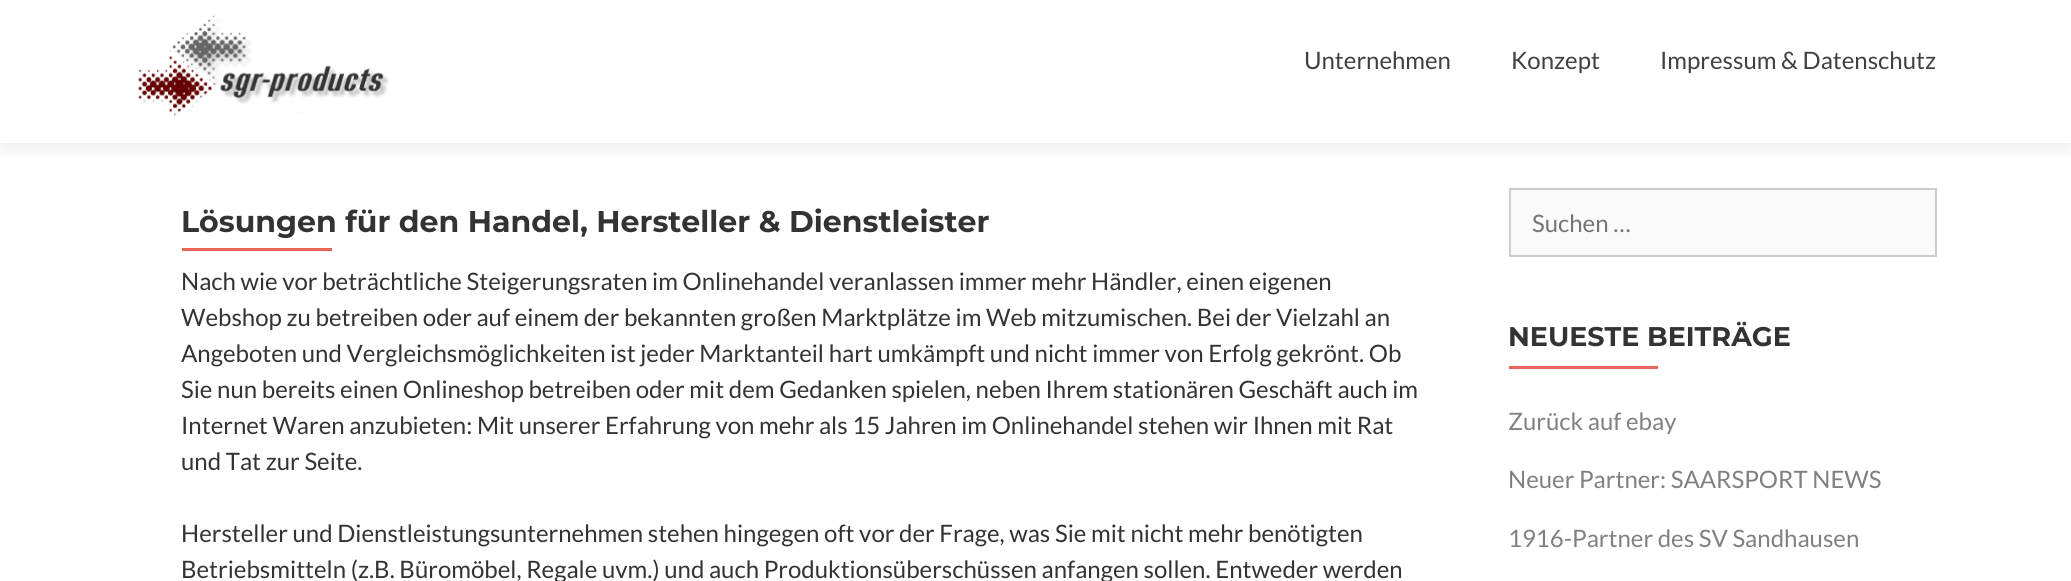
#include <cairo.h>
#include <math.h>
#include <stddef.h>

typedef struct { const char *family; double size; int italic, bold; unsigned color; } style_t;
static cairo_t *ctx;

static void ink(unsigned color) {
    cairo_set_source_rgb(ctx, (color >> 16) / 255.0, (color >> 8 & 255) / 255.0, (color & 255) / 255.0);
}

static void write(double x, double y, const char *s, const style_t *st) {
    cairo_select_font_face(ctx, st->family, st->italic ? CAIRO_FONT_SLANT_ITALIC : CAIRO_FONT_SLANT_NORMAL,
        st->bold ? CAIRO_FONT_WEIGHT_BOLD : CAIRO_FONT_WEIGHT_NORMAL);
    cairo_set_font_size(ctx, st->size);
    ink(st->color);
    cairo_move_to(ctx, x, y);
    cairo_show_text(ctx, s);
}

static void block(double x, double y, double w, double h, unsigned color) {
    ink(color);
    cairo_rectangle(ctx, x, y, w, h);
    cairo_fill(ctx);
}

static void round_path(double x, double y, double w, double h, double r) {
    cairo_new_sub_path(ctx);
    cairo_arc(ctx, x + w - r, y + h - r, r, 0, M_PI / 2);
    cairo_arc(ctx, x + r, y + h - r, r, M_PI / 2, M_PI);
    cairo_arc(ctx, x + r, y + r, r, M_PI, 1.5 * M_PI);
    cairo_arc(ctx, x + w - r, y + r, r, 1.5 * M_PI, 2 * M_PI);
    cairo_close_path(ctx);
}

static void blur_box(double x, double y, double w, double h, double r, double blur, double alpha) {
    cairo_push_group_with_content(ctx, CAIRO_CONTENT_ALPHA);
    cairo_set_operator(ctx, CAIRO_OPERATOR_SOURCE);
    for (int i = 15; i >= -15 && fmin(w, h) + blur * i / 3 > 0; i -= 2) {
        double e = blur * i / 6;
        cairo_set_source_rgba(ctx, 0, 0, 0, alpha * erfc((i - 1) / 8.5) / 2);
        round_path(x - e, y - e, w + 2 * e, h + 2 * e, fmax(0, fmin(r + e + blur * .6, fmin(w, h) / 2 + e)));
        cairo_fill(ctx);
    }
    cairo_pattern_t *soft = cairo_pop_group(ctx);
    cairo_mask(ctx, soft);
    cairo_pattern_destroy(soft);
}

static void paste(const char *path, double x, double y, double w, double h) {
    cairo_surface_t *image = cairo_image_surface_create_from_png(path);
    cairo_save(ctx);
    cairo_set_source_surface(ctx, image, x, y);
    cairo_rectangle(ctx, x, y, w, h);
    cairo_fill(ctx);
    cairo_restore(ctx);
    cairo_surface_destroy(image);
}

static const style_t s1 = {"Lato", 24, 0, 0, 0x404040};
static const style_t s2 = {"Montserrat Thin", 30, 0, 0, 0x333333};
static const style_t s3 = {"Lato", 24, 0, 0, 0x333333};
static const style_t s4 = {"Lato", 24, 0, 0, 0x757575};
static const style_t s5 = {"Montserrat Thin", 27, 0, 0, 0x333333};
static const style_t s6 = {"Lato", 24, 0, 0, 0x808080};

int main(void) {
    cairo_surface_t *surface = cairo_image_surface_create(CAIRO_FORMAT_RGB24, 2071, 581);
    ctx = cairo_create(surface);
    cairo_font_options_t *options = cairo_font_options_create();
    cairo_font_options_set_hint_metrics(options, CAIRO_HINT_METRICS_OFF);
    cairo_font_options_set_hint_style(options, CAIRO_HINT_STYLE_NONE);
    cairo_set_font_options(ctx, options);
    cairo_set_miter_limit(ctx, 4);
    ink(0xffffff);
    cairo_paint(ctx);
    ink(0x323232);
    blur_box(0, 8, 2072, 142, 0, 8, 0.08);
    block(0, 0, 2071, 143, 0xffffff);
    paste("pic1.png", 137, 15, 252, 101);
    write(1304, 69, "Unternehmen", &s1);
    write(1511, 69, "Konzept", &s1);
    write(1660, 69, "Impressum & Datenschutz", &s1);
    write(181, 232, "Lösungen für den Handel, Hersteller & Dienstleister", &s2);
    block(182, 248, 150, 3, 0xe96656);
    write(181, 290, "Nach wie vor beträchtliche Steigerungsraten im Onlinehandel veranlassen immer mehr Händler, einen eigenen", &s3);
    write(181, 326, "Webshop zu betreiben oder auf einem der bekannten großen Marktplätze im Web mitzumischen. Bei der Vielzahl an", &s3);
    write(181, 362, "Angeboten und Vergleichsmöglichkeiten ist jeder Marktanteil hart umkämpft und nicht immer von Erfolg gekrönt. Ob", &s3);
    write(181, 398, "Sie nun bereits einen Onlineshop betreiben oder mit dem Gedanken spielen, neben Ihrem stationären Geschäft auch im", &s3);
    write(181, 434, "Internet Waren anzubieten: Mit unserer Erfahrung von mehr als 15 Jahren im Onlinehandel stehen wir Ihnen mit Rat", &s3);
    write(181, 470, "und Tat zur Seite.", &s3);
    write(181, 542, "Hersteller und Dienstleistungsunternehmen stehen hingegen oft vor der Frage, was Sie mit nicht mehr benötigten", &s3);
    write(181, 578, "Betriebsmitteln (z.B. Büromöbel, Regale uvm.) und auch Produktionsüberschüssen anfangen sollen. Entweder werden", &s3);
    ink(0xfafafa);
    cairo_rectangle(ctx, 1510, 189, 426, 67);
    cairo_fill_preserve(ctx);
    ink(0xcccccc);
    cairo_stroke(ctx);
    write(1532, 232, "Suchen …", &s4);
    write(1508, 346, "NEUESTE BEITRÄGE", &s5);
    block(1509, 366, 149, 3, 0xe96656);
    write(1508, 430, "Zurück auf ebay", &s6);
    write(1508, 488, "Neuer Partner: SAARSPORT NEWS", &s6);
    write(1508, 547, "1916-Partner des SV Sandhausen", &s6);
    cairo_surface_write_to_png(surface, "screenshot.png");
    cairo_font_options_destroy(options);
    cairo_destroy(ctx);
    cairo_surface_destroy(surface);
    return 0;
}
